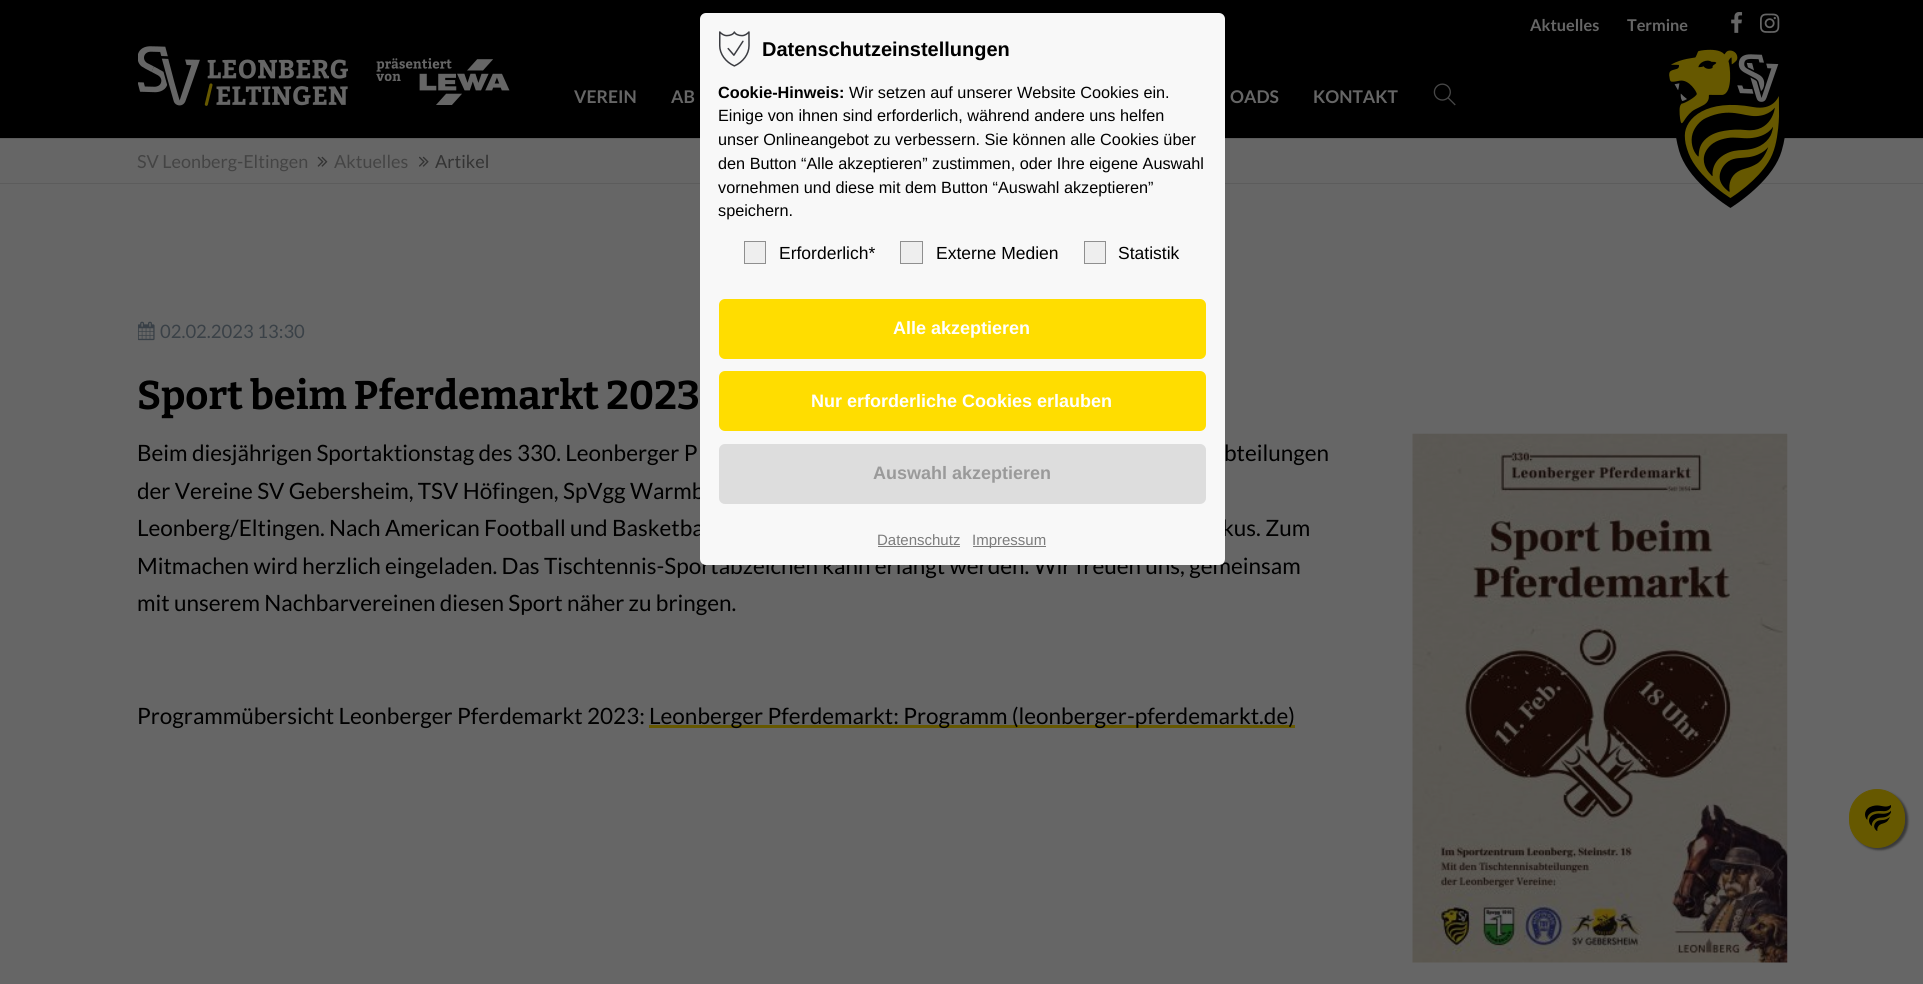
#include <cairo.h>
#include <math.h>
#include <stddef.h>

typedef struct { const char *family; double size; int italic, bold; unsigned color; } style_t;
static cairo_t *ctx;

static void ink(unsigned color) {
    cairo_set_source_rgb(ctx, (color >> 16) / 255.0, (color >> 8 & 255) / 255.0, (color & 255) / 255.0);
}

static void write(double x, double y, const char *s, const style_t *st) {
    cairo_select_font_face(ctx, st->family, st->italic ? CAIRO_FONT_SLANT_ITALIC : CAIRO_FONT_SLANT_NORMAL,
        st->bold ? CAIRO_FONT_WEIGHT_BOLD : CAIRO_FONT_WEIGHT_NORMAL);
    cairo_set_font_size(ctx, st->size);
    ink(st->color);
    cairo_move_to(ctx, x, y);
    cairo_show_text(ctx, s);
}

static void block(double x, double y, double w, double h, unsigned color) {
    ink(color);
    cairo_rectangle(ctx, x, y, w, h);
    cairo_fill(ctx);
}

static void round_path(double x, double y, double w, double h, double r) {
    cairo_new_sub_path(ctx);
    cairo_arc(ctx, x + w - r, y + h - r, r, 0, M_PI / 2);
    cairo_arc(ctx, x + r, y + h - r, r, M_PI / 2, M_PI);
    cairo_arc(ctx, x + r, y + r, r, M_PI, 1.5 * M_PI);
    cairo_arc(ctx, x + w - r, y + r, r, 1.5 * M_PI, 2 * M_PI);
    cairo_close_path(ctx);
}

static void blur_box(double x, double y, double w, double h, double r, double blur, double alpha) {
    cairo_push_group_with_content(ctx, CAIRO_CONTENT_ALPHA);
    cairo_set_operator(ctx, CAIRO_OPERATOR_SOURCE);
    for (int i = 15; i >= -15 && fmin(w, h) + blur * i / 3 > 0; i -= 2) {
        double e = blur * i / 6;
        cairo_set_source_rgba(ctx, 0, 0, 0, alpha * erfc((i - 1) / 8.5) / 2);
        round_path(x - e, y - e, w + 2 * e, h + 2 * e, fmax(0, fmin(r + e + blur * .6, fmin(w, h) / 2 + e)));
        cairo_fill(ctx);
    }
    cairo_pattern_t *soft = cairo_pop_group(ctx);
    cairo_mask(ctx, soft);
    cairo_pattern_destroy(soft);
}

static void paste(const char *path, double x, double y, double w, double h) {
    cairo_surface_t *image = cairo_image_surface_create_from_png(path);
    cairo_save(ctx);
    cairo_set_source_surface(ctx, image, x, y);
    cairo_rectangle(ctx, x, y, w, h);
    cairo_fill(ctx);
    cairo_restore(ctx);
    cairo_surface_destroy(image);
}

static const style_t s1 = {"Lato", 16.25, 0, 1, 0x666666};
static const style_t s2 = {"Lato", 17.5, 0, 1, 0x666666};
static const style_t s3 = {"Lato", 18, 0, 0, 0x444444};
static const style_t s4 = {"Lato", 18, 0, 0, 0x333333};
static const style_t s5 = {"Lato", 18.5, 0, 0, 0x3a4147};
static const style_t s6 = {"Bitter Thin", 40, 0, 0, 0x000000};
static const style_t s7 = {"Lato", 22.5, 0, 0, 0x000000};
static const style_t s8 = {"Liberation Sans", 20, 0, 1, 0x000000};
static const style_t s9 = {"Liberation Sans", 16.25, 0, 1, 0x000000};
static const style_t s10 = {"Liberation Sans", 16.25, 0, 0, 0x000000};
static const style_t s11 = {"Liberation Sans", 17.5, 0, 0, 0x000000};
static const style_t s12 = {"Liberation Sans", 18, 0, 1, 0xffffff};
static const style_t s13 = {"Liberation Sans", 18, 0, 1, 0x9a9a9a};
static const style_t s14 = {"Liberation Sans", 15, 0, 0, 0x7c7c7c};

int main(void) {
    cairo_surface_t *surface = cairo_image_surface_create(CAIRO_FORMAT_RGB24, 1923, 984);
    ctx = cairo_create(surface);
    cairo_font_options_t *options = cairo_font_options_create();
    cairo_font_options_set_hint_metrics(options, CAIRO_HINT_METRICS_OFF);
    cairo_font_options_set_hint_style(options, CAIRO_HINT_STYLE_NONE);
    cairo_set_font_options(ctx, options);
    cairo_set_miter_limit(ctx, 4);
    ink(0x666666);
    cairo_paint(ctx);
    block(0, 0, 1923, 138, 0x000000);
    write(1530, 31, "Aktuelles", &s1);
    write(1627, 31, "Termine", &s1);
    paste("pic1.png", 1731, 12, 12, 21);
    paste("pic2.png", 1760, 13, 20, 20);
    paste("pic3.png", 138, 46, 210, 60);
    paste("pic4.png", 376, 58, 134, 47);
    write(574, 103, "VEREIN", &s2);
    write(671, 103, "AB", &s2);
    write(1230, 103, "OADS", &s2);
    write(1313, 103, "KONTAKT", &s2);
    paste("pic5.png", 1433, 83, 23, 23);
    block(0, 138, 1923, 1, 0x5c5c5c);
    block(0, 183, 1923, 1, 0x5c5c5c);
    paste("pic6.png", 1669, 49, 116, 159);
    write(137, 168, "SV Leonberg-Eltingen", &s3);
    paste("pic7.png", 317, 156, 11, 11);
    write(334, 168, "Aktuelles", &s3);
    paste("pic8.png", 419, 156, 10, 11);
    write(435, 168, "Artikel", &s4);
    paste("pic9.png", 138, 321, 17, 20);
    write(160, 338, "02.02.2023 13:30", &s5);
    write(137, 409, "Sport beim Pferdemarkt 2023", &s6);
    write(137, 461, "Beim diesjährigen Sportaktionstag des 330. Leonberger P", &s7);
    write(1224, 461, "bteilungen", &s7);
    cairo_save(ctx);
    cairo_rectangle(ctx, 138, 370, 1650, 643);
    cairo_clip(ctx);
    write(137, 499, "der Vereine SV Gebersheim, TSV Höfingen, SpVgg Warmb", &s7);
    cairo_restore(ctx);
    write(137, 536, "Leonberg/Eltingen. Nach American Football und Basketba", &s7);
    write(1222, 536, "kus. Zum", &s7);
    write(137, 574, "Mitmachen wird herzlich eingeladen. Das Tischtennis-Sportabzeichen kann erlangt werden. Wir freuen uns, gemeinsam", &s7);
    write(137, 611, "mit unserem Nachbarvereinen diesen Sport näher zu bringen.", &s7);
    paste("pic10.png", 1412, 433, 376, 530);
    write(137, 724, "Programmübersicht Leonberger Pferdemarkt 2023:", &s7);
    block(649, 725, 646, 3, 0x665800);
    write(649, 724, "Leonberger Pferdemarkt: Programm (leonberger-pferdemarkt.de)", &s7);
    ink(0xf8f8f8);
    round_path(700, 13, 525, 552, 6);
    cairo_fill(ctx);
    paste("pic11.png", 719, 31, 31, 36);
    write(762, 56, "Datenschutzeinstellungen", &s8);
    write(718, 98, "Cookie-Hinweis:", &s9);
    write(849, 98, "Wir setzen auf unserer Website Cookies ein.", &s10);
    write(718, 121, "Einige von ihnen sind erforderlich, während andere uns helfen", &s10);
    write(718, 145, "unser Onlineangebot zu verbessern. Sie können alle Cookies über", &s10);
    write(718, 169, "den Button “Alle akzeptieren” zustimmen, oder Ihre eigene Auswahl", &s10);
    write(718, 193, "vornehmen und diese mit dem Button “Auswahl akzeptieren”", &s10);
    write(718, 216, "speichern.", &s10);
    ink(0xeeeeee);
    cairo_rectangle(ctx, 744.5, 241.5, 21, 22);
    cairo_fill_preserve(ctx);
    ink(0x8f8f8f);
    cairo_set_line_width(ctx, 1);
    cairo_stroke(ctx);
    write(779, 259, "Erforderlich*", &s11);
    ink(0xeeeeee);
    cairo_rectangle(ctx, 900.5, 241.5, 22, 22);
    cairo_fill_preserve(ctx);
    ink(0x8f8f8f);
    cairo_stroke(ctx);
    write(936, 259, "Externe Medien", &s11);
    ink(0xeeeeee);
    cairo_rectangle(ctx, 1084.5, 241.5, 21, 22);
    cairo_fill_preserve(ctx);
    ink(0x8f8f8f);
    cairo_stroke(ctx);
    write(1118, 259, "Statistik", &s11);
    ink(0xffdd00);
    round_path(719, 299, 487, 60, 6);
    cairo_fill(ctx);
    write(893, 334, "Alle akzeptieren", &s12);
    ink(0xffdd00);
    round_path(719, 371, 487, 60, 6);
    cairo_fill(ctx);
    write(811, 407, "Nur erforderliche Cookies erlauben", &s12);
    ink(0xdddddd);
    round_path(719, 444, 487, 60, 6);
    cairo_fill(ctx);
    write(873, 479, "Auswahl akzeptieren", &s13);
    write(877, 545, "Datenschutz", &s14);
    block(878, 546, 82, 1, 0x7c7c7c);
    block(973, 546, 73, 1, 0x7c7c7c);
    write(972, 545, "Impressum", &s14);
    ink(0x000000);
    blur_box(1851, 791, 57, 59, 28.5, 1, 0.44);
    ink(0x665800);
    round_path(1849.5, 789.5, 55, 58, 27.5);
    cairo_fill_preserve(ctx);
    cairo_stroke(ctx);
    paste("pic12.png", 1865, 805, 26, 26);
    cairo_surface_write_to_png(surface, "screenshot.png");
    cairo_font_options_destroy(options);
    cairo_destroy(ctx);
    cairo_surface_destroy(surface);
    return 0;
}
